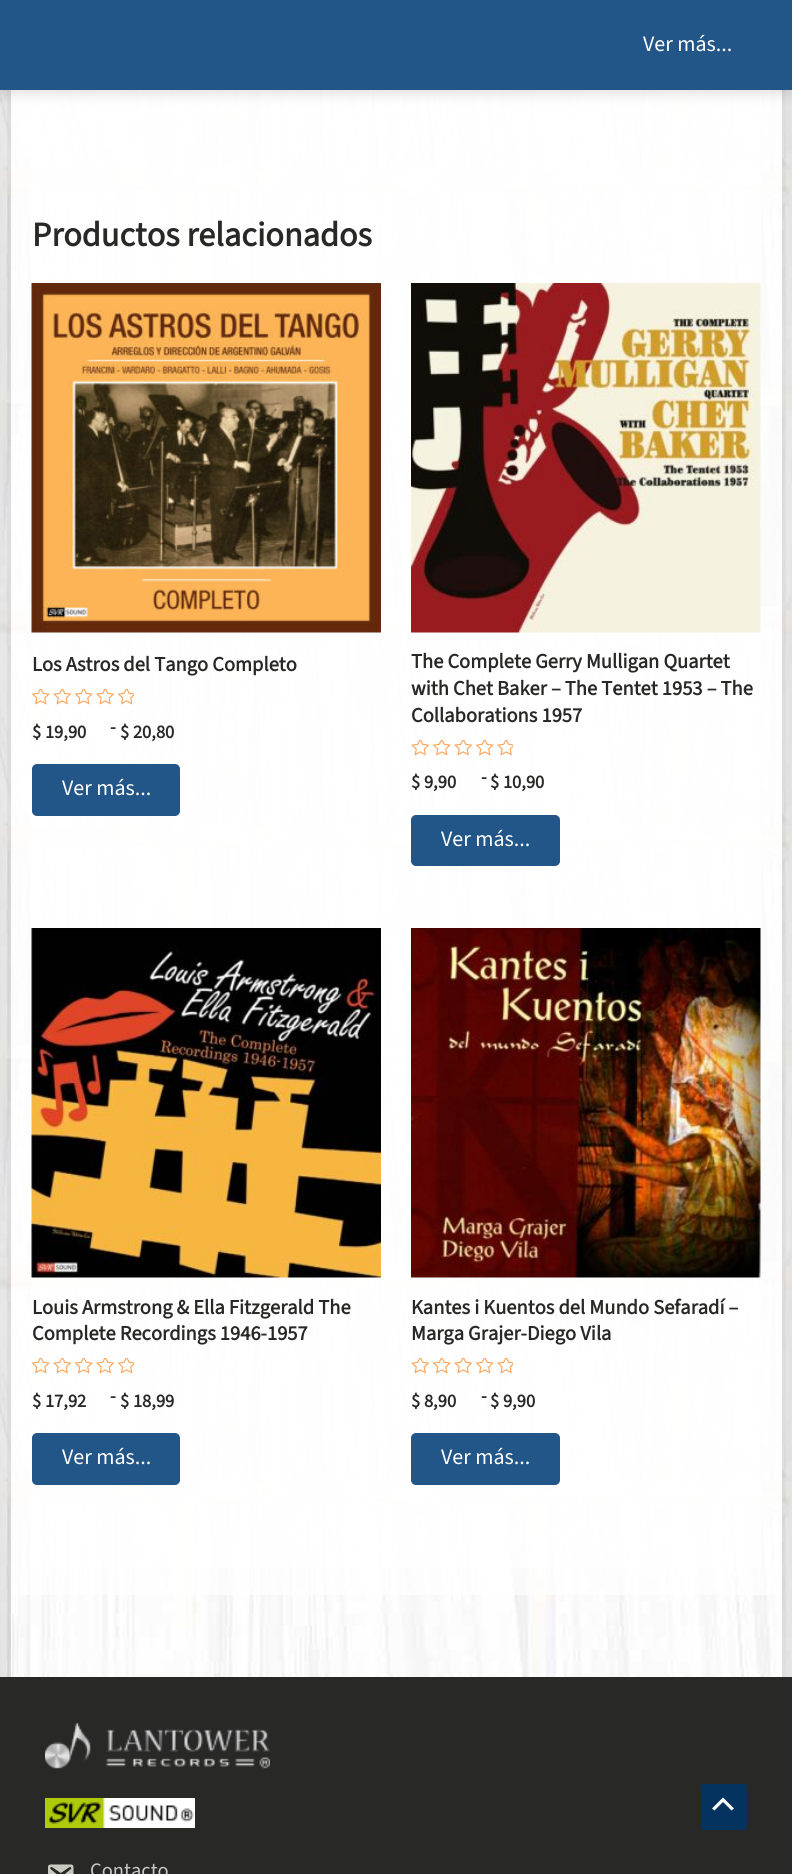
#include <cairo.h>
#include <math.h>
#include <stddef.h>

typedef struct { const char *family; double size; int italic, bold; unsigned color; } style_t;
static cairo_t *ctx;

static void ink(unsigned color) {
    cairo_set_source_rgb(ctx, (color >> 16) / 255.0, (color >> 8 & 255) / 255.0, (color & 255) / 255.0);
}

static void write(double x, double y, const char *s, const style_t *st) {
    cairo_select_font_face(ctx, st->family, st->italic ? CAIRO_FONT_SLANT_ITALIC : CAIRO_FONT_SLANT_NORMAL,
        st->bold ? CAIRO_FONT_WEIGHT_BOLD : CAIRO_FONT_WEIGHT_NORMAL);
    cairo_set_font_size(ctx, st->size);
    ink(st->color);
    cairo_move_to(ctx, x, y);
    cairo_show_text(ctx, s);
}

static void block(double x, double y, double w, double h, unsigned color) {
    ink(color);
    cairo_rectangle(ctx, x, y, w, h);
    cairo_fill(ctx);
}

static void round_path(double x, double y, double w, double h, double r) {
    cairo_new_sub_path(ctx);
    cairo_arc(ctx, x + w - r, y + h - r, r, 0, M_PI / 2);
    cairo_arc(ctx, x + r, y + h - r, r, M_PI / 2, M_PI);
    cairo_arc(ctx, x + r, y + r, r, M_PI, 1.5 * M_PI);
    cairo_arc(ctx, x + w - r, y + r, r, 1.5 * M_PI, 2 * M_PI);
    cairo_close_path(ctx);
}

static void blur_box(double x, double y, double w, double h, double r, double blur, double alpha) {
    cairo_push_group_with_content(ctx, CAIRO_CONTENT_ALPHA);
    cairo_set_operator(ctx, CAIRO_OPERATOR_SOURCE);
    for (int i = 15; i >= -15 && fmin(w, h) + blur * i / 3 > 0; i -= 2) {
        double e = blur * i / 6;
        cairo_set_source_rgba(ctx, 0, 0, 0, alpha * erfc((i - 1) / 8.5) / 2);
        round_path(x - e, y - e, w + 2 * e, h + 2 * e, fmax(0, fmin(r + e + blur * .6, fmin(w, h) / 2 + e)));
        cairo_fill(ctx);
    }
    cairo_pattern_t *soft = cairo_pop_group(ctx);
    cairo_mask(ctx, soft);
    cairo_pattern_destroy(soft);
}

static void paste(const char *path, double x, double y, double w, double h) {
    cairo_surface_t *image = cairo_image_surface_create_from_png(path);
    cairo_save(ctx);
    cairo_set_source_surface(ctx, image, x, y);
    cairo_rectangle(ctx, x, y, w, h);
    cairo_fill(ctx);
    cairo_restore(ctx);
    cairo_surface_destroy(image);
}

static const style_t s1 = {"Source Sans 3 ExtraLight", 22, 0, 0, 0xffffff};
static const style_t s2 = {"Source Sans 3", 34.25, 0, 1, 0x282827};
static const style_t s3 = {"Source Sans 3", 20.5, 0, 1, 0x282827};
static const style_t s4 = {"Source Sans 3", 18.5, 0, 1, 0x282827};
static const style_t s5 = {"Source Sans 3 ExtraLight", 20.5, 0, 0, 0xc8c9c1};

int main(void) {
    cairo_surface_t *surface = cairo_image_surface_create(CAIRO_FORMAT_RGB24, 792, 1874);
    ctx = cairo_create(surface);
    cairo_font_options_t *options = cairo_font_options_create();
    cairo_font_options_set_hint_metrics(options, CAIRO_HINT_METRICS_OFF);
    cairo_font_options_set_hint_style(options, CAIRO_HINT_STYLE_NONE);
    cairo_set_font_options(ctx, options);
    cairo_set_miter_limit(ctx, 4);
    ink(0xffffff);
    cairo_paint(ctx);
    paste("pic1.png", 0, 90, 792, 1587);
    cairo_save(ctx);
    cairo_set_fill_rule(ctx, CAIRO_FILL_RULE_EVEN_ODD);
    cairo_new_path(ctx);
    cairo_move_to(ctx, 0, 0);
    cairo_line_to(ctx, 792, 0);
    cairo_line_to(ctx, 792, 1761);
    cairo_line_to(ctx, 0, 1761);
    cairo_close_path(ctx);
    cairo_move_to(ctx, 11, -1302);
    cairo_line_to(ctx, 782, -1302);
    cairo_line_to(ctx, 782, 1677);
    cairo_line_to(ctx, 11, 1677);
    cairo_close_path(ctx);
    cairo_clip(ctx);
    ink(0x000000);
    blur_box(11, -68, 771, 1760, 0, 22.5, 0.25);
    cairo_restore(ctx);
    cairo_set_source_rgba(ctx, 1, 1, 1, 0.67);
    cairo_rectangle(ctx, 11, 90, 771, 1505);
    cairo_fill(ctx);
    cairo_rectangle(ctx, 32, 90, 729, 1478);
    cairo_fill(ctx);
    ink(0x000000);
    blur_box(0, 2, 792, 90, 0, 7, 0.06);
    blur_box(0, 2, 792, 90, 0, 7.5, 0.1);
    block(0, 0, 792, 90, 0x225588);
    write(643, 51, "Ver más...", &s1);
    write(32, 246, "Productos relacionados", &s2);
    paste("pic2.png", 31, 283, 350, 350);
    write(32, 671, "Los Astros del Tango Completo", &s3);
    paste("pic3.png", 32, 689, 102, 16);
    write(32, 738, "$ 19,90", &s4);
    write(110, 733, "-", &s4);
    write(120, 738, "$ 20,80", &s4);
    ink(0x225588);
    round_path(32, 764, 148, 52, 5);
    cairo_fill(ctx);
    write(62, 795, "Ver más...", &s1);
    paste("pic4.png", 411, 283, 350, 350);
    write(411, 668, "The Complete Gerry Mulligan Quartet", &s3);
    write(411, 695, "with Chet Baker – The Tentet 1953 – The", &s3);
    write(411, 722, "Collaborations 1957", &s3);
    paste("pic5.png", 411, 740, 102, 16);
    write(411, 788, "$ 9,90", &s4);
    write(481, 783, "-", &s4);
    write(490, 788, "$ 10,90", &s4);
    ink(0x225588);
    round_path(411, 815, 149, 51, 5);
    cairo_fill(ctx);
    write(441, 846, "Ver más...", &s1);
    paste("pic6.png", 31, 928, 350, 350);
    write(32, 1314, "Louis Armstrong & Ella Fitzgerald The", &s3);
    write(32, 1340, "Complete Recordings 1946-1957", &s3);
    paste("pic3.png", 32, 1358, 102, 16);
    write(32, 1407, "$ 17,92", &s4);
    write(110, 1402, "-", &s4);
    write(120, 1407, "$ 18,99", &s4);
    ink(0x225588);
    round_path(32, 1433, 148, 52, 5);
    cairo_fill(ctx);
    write(62, 1464, "Ver más...", &s1);
    paste("pic7.png", 411, 928, 350, 350);
    write(411, 1314, "Kantes i Kuentos del Mundo Sefaradí –", &s3);
    write(411, 1340, "Marga Grajer-Diego Vila", &s3);
    paste("pic8.png", 411, 1358, 102, 16);
    write(411, 1407, "$ 8,90", &s4);
    write(481, 1402, "-", &s4);
    write(490, 1407, "$ 9,90", &s4);
    ink(0x225588);
    round_path(411, 1433, 149, 52, 5);
    cairo_fill(ctx);
    write(441, 1464, "Ver más...", &s1);
    block(0, 1677, 792, 197, 0x282827);
    paste("pic9.png", 45, 1723, 225, 46);
    paste("pic10.png", 45, 1798, 150, 30);
    paste("pic11.png", 48, 1864, 26, 10);
    write(90, 1877, "Contacto", &s5);
    ink(0x043360);
    round_path(701, 1784, 46, 46, 3);
    cairo_fill(ctx);
    ink(0xffffff);
    cairo_new_path(ctx);
    cairo_move_to(ctx, 734, 1808.5);
    cairo_line_to(ctx, 723, 1797.5);
    cairo_line_to(ctx, 712, 1808.5);
    cairo_line_to(ctx, 714.5, 1810.5);
    cairo_line_to(ctx, 723, 1802);
    cairo_line_to(ctx, 731.5, 1810.5);
    cairo_close_path(ctx);
    cairo_fill(ctx);
    cairo_surface_write_to_png(surface, "screenshot.png");
    cairo_font_options_destroy(options);
    cairo_destroy(ctx);
    cairo_surface_destroy(surface);
    return 0;
}
